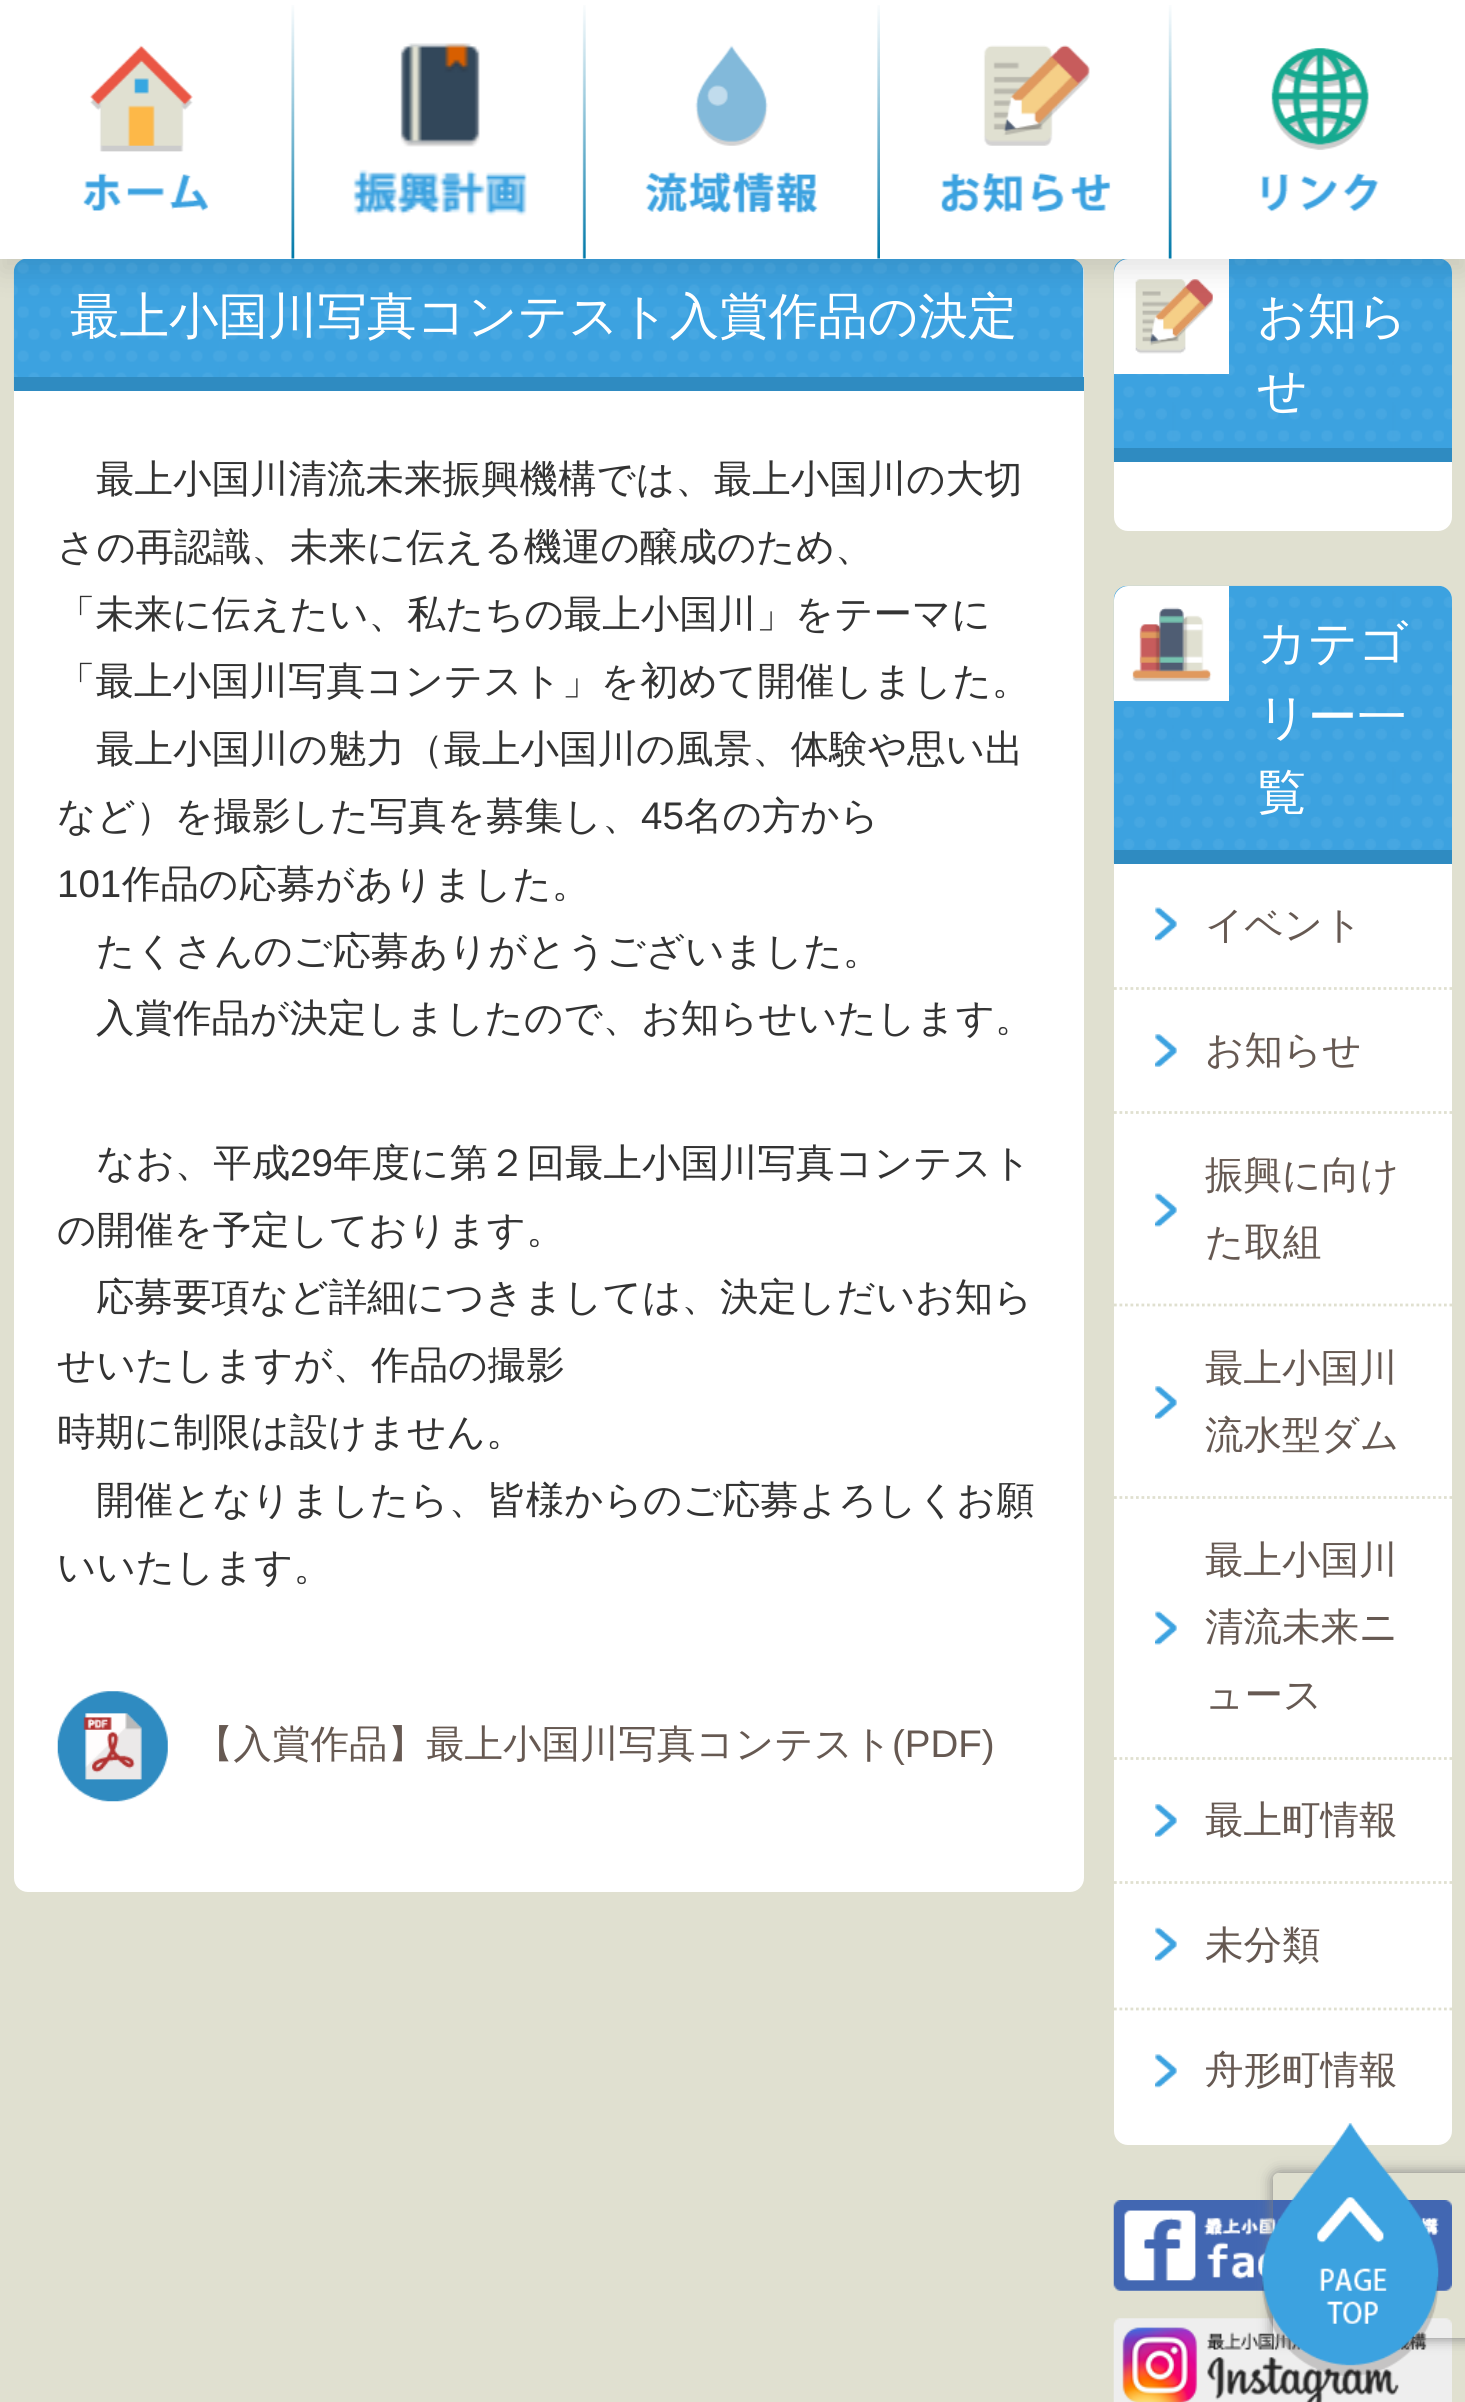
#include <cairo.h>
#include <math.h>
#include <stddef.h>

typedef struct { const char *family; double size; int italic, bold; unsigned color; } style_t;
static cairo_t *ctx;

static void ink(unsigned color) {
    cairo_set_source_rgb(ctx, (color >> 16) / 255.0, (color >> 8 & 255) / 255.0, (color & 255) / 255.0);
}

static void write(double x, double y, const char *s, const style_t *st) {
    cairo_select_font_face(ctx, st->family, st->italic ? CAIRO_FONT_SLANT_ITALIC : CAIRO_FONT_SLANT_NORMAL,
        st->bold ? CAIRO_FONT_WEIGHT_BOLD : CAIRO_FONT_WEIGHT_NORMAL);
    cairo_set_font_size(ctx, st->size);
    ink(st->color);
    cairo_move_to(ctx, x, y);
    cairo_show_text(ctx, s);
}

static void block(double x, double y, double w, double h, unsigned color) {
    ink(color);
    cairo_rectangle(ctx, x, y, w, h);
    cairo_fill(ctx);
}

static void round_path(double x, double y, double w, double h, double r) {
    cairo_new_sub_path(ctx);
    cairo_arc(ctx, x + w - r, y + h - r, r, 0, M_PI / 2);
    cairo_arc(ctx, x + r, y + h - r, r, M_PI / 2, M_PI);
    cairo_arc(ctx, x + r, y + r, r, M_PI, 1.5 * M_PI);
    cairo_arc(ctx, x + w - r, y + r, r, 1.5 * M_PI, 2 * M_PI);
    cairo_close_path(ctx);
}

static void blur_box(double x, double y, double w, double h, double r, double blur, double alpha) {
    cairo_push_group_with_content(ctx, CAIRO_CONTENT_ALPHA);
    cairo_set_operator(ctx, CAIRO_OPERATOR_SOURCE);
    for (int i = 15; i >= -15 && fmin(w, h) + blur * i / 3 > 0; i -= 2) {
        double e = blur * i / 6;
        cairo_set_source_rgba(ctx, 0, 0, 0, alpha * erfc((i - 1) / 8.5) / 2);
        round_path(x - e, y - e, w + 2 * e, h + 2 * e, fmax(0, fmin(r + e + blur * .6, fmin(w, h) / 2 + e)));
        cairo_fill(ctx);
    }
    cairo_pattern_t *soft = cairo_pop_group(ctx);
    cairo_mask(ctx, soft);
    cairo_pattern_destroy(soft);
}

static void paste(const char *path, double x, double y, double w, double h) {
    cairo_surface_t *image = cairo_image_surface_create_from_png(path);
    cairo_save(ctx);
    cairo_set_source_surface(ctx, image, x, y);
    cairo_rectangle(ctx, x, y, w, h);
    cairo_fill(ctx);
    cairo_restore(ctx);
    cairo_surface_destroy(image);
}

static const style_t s1 = {"WenQuanYi Zen Hei Medium", 49.5, 0, 0, 0xffffff};
static const style_t s2 = {"WenQuanYi Zen Hei Medium", 38.5, 0, 0, 0x333333};
static const style_t s3 = {"Liberation Sans", 38.5, 0, 0, 0x333333};
static const style_t s4 = {"WenQuanYi Zen Hei Medium", 38.5, 0, 0, 0x665952};
static const style_t s5 = {"Liberation Sans", 38.5, 0, 0, 0x665952};

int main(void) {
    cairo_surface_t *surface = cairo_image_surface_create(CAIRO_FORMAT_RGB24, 1465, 2402);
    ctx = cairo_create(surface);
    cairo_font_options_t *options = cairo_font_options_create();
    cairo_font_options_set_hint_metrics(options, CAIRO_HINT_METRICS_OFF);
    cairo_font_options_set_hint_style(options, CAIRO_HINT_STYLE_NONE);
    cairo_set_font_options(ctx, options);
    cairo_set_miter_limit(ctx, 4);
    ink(0xe0e0d0);
    cairo_paint(ctx);
    ink(0xffffff);
    round_path(14, 259, 1070, 1633, 14);
    cairo_fill(ctx);
    paste("pic10.png", 13, 259, 1071, 131);
    round_path(1114, 259, 338, 272, 14);
    cairo_fill(ctx);
    paste("pic12.png", 1113, 259, 339, 203);
    cairo_new_path(ctx);
    cairo_move_to(ctx, 1128, 259);
    cairo_line_to(ctx, 1229, 259);
    cairo_line_to(ctx, 1229, 374);
    cairo_line_to(ctx, 1114, 374);
    cairo_line_to(ctx, 1114, 273);
    cairo_curve_to(ctx, 1114, 265.5, 1120.5, 259, 1128, 259);
    cairo_close_path(ctx);
    cairo_fill(ctx);
    paste("pic13.png", 1135, 279, 78, 75);
    ink(0x000000);
    blur_box(0, 14, 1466, 258, 0, 14, 0.1);
    block(0, 0, 1465, 259, 0xffffff);
    paste("pic1.png", 291, 5, 4, 254);
    paste("pic2.png", 83, 45, 126, 166);
    paste("pic3.png", 582, 5, 4, 254);
    paste("pic4.png", 353, 43, 174, 173);
    paste("pic5.png", 877, 5, 3, 254);
    paste("pic6.png", 645, 45, 173, 169);
    paste("pic7.png", 1168, 5, 4, 254);
    paste("pic8.png", 941, 45, 170, 169);
    paste("pic9.png", 1261, 48, 118, 164);
    block(14, 377, 1070, 14, 0x2f8bc1);
    write(70, 333, "最上小国川写真コンテスト入賞作品の決定", &s1);
    write(96, 492, "最上小国川清流未来振興機構では、最上小国川の大切", &s2);
    write(57, 560, "さの再認識、未来に伝える機運の醸成のため、", &s2);
    write(57, 627, "「未来に伝えたい、私たちの最上小国川」をテーマに", &s2);
    write(57, 694, "「最上小国川写真コンテスト」を初めて開催しました。", &s2);
    write(96, 762, "最上小国川の魅力（最上小国川の風景、体験や思い出", &s2);
    write(57, 829, "など）を撮影した写真を募集し、", &s2);
    write(641, 829, "45", &s3);
    write(684, 829, "名の方から", &s2);
    write(57, 897, "101", &s3);
    write(122, 897, "作品の応募がありました。", &s2);
    write(96, 964, "たくさんのご応募ありがとうございました。", &s2);
    write(96, 1031, "入賞作品が決定しましたので、お知らせいたします。", &s2);
    write(96, 1176, "なお、平成", &s2);
    write(290, 1176, "29", &s3);
    write(333, 1176, "年度に第２回最上小国川写真コンテスト", &s2);
    write(57, 1243, "の開催を予定しております。", &s2);
    write(96, 1310, "応募要項など詳細につきましては、決定しだいお知ら", &s2);
    write(57, 1378, "せいたしますが、作品の撮影", &s2);
    write(57, 1445, "時期に制限は設けません。", &s2);
    write(96, 1513, "開催となりましたら、皆様からのご応募よろしくお願", &s2);
    write(57, 1580, "いいたします。", &s2);
    paste("pic11.png", 57, 1691, 111, 111);
    write(195, 1757, "【入賞作品】最上小国川写真コンテスト", &s4);
    write(892, 1757, "(PDF)", &s5);
    block(1114, 448, 338, 14, 0x2f8bc1);
    write(1257, 333, "お知ら", &s1);
    write(1257, 407, "せ", &s1);
    round_path(1114, 586, 338, 1559, 14);
    cairo_fill(ctx);
    paste("pic14.png", 1113, 585, 339, 278);
    block(1114, 850, 338, 14, 0x2f8bc1);
    ink(0xffffff);
    cairo_new_path(ctx);
    cairo_move_to(ctx, 1128, 586);
    cairo_line_to(ctx, 1229, 586);
    cairo_line_to(ctx, 1229, 701);
    cairo_line_to(ctx, 1114, 701);
    cairo_line_to(ctx, 1114, 600);
    cairo_curve_to(ctx, 1114, 592.5, 1120.5, 586, 1128, 586);
    cairo_close_path(ctx);
    cairo_fill(ctx);
    paste("pic15.png", 1132, 607, 80, 75);
    write(1257, 660, "カテゴ", &s1);
    write(1257, 734, "リー一", &s1);
    write(1257, 809, "覧", &s1);
    paste("pic16.png", 1155, 907, 22, 34);
    cairo_new_path(ctx);
    cairo_move_to(ctx, 1114, 988.5);
    cairo_line_to(ctx, 1452, 988.5);
    ink(0xe0e0d0);
    cairo_set_line_width(ctx, 2.8);
    cairo_set_dash(ctx, (double[]){2.75, 2.75}, 2, 0);
    cairo_stroke(ctx);
    write(1205, 938, "イベント", &s4);
    paste("pic17.png", 1155, 1034, 22, 33);
    cairo_new_path(ctx);
    cairo_move_to(ctx, 1114, 1112.5);
    cairo_line_to(ctx, 1452, 1112.5);
    ink(0xe0e0d0);
    cairo_stroke(ctx);
    write(1205, 1063, "お知らせ", &s4);
    paste("pic16.png", 1155, 1193, 22, 34);
    cairo_new_path(ctx);
    cairo_move_to(ctx, 1114, 1305);
    cairo_line_to(ctx, 1452, 1305);
    ink(0xe0e0d0);
    cairo_stroke(ctx);
    write(1205, 1188, "振興に向け", &s4);
    write(1205, 1255, "た取組", &s4);
    paste("pic17.png", 1155, 1386, 22, 33);
    cairo_new_path(ctx);
    cairo_move_to(ctx, 1114, 1497.5);
    cairo_line_to(ctx, 1452, 1497.5);
    ink(0xe0e0d0);
    cairo_stroke(ctx);
    write(1205, 1381, "最上小国川", &s4);
    write(1205, 1448, "流水型ダム", &s4);
    paste("pic16.png", 1155, 1611, 22, 34);
    cairo_new_path(ctx);
    cairo_move_to(ctx, 1114, 1758.5);
    cairo_line_to(ctx, 1452, 1758.5);
    ink(0xe0e0d0);
    cairo_stroke(ctx);
    write(1205, 1573, "最上小国川", &s4);
    write(1205, 1640, "清流未来ニ", &s4);
    write(1205, 1708, "ュース", &s4);
    paste("pic17.png", 1155, 1804, 22, 33);
    cairo_new_path(ctx);
    cairo_move_to(ctx, 1114, 1882.5);
    cairo_line_to(ctx, 1452, 1882.5);
    ink(0xe0e0d0);
    cairo_stroke(ctx);
    write(1205, 1833, "最上町情報", &s4);
    paste("pic18.png", 1155, 1927, 22, 34);
    cairo_new_path(ctx);
    cairo_move_to(ctx, 1114, 2009);
    cairo_line_to(ctx, 1452, 2009);
    ink(0xe0e0d0);
    cairo_stroke(ctx);
    write(1205, 1958, "未分類", &s4);
    paste("pic19.png", 1155, 2054, 22, 34);
    write(1205, 2083, "舟形町情報", &s4);
    paste("pic20.png", 1113, 2200, 339, 91);
    paste("pic21.png", 1113, 2318, 339, 84);
    cairo_save(ctx);
    cairo_set_fill_rule(ctx, CAIRO_FILL_RULE_EVEN_ODD);
    cairo_new_path(ctx);
    cairo_move_to(ctx, 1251, 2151);
    cairo_line_to(ctx, 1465, 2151);
    cairo_line_to(ctx, 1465, 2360);
    cairo_line_to(ctx, 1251, 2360);
    cairo_close_path(ctx);
    cairo_move_to(ctx, 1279, 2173);
    cairo_line_to(ctx, 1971, 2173);
    cairo_curve_to(ctx, 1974.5, 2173, 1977, 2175.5, 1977, 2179);
    cairo_line_to(ctx, 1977, 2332);
    cairo_curve_to(ctx, 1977, 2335.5, 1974.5, 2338, 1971, 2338);
    cairo_line_to(ctx, 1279, 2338);
    cairo_curve_to(ctx, 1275.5, 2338, 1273, 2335.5, 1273, 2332);
    cairo_line_to(ctx, 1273, 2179);
    cairo_curve_to(ctx, 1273, 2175.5, 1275.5, 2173, 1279, 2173);
    cairo_close_path(ctx);
    cairo_clip(ctx);
    ink(0x808080);
    blur_box(1273, 2173, 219, 165, 6, 7, 1);
    cairo_restore(ctx);
    paste("pic22.png", 1262, 2123, 177, 253);
    cairo_surface_write_to_png(surface, "screenshot.png");
    cairo_font_options_destroy(options);
    cairo_destroy(ctx);
    cairo_surface_destroy(surface);
    return 0;
}
